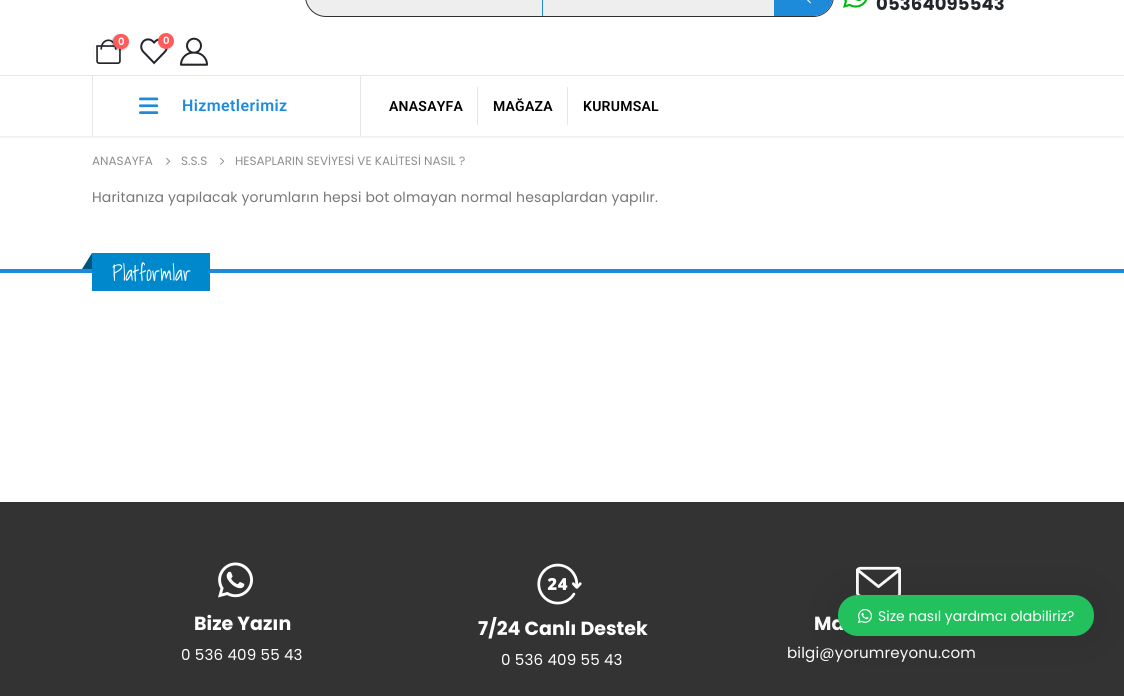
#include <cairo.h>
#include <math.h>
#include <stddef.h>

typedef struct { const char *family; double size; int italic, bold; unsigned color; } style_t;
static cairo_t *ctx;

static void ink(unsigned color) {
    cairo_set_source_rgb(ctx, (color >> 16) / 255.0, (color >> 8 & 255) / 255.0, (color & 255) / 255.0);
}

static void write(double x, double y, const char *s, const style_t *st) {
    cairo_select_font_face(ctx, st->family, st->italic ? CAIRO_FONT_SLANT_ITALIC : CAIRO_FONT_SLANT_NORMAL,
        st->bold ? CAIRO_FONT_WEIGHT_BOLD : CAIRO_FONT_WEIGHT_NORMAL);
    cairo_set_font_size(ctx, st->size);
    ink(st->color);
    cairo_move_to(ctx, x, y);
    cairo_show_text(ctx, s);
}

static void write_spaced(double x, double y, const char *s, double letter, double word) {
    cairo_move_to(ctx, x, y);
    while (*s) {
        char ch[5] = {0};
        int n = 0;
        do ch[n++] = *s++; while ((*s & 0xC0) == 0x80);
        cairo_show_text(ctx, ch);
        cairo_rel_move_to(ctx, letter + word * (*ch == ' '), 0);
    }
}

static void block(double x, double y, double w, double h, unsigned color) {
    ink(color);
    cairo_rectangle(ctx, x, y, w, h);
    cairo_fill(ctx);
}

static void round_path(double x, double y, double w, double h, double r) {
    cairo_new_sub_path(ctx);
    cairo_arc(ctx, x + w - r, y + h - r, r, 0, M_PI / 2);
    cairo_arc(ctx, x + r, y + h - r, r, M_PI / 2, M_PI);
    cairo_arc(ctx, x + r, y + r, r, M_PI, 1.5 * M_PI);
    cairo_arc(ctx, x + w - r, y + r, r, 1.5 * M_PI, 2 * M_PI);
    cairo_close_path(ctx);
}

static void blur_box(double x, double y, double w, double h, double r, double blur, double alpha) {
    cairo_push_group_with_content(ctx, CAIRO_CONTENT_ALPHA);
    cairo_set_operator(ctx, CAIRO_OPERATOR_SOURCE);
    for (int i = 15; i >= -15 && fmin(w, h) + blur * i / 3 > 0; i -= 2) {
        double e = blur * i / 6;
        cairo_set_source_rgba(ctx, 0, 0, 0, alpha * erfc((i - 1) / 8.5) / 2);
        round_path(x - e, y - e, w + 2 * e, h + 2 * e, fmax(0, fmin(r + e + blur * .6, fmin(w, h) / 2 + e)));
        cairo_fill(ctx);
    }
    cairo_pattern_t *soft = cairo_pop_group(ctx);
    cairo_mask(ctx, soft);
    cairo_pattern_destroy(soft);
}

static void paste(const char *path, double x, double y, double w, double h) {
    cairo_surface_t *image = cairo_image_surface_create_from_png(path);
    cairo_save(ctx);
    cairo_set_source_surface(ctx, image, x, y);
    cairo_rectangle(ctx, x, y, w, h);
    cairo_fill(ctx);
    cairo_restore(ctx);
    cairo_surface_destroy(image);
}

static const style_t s1 = {"Poppins SemiBold", 10, 0, 0, 0xffffff};
static const style_t s2 = {"Poppins", 12, 0, 0, 0x8e8e8e};
static const style_t s3 = {"Shadows Into Light Light", 21, 0, 0, 0xffffff};
static const style_t s4 = {"Poppins", 19, 0, 1, 0xffffff};
static const style_t s5 = {"Poppins", 14, 0, 0, 0xffffff};

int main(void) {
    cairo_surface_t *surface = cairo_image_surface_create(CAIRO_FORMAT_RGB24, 1124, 696);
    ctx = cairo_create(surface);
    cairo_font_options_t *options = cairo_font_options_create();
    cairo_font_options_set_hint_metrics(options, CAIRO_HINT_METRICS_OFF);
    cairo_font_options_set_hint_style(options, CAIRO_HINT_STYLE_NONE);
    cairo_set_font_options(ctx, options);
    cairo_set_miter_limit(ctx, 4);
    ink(0xffffff);
    cairo_paint(ctx);
    cairo_save(ctx);
    cairo_rectangle(ctx, 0, 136, 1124, 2);
    cairo_clip(ctx);
    ink(0x000000);
    blur_box(0, -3, 1124, 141, 0, 1, 0.06);
    cairo_restore(ctx);
    block(0, 75, 1124, 1, 0xe7e7e7);
    ink(0xeeeeee);
    round_path(305.5, -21.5, 528, 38, 20.5);
    cairo_fill_preserve(ctx);
    ink(0x303030);
    cairo_set_line_width(ctx, 1);
    cairo_stroke(ctx);
    block(542, 0, 1, 16, 0x1d8ada);
    cairo_new_path(ctx);
    cairo_move_to(ctx, 774, -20);
    cairo_line_to(ctx, 813, -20);
    cairo_curve_to(ctx, 824, -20, 833, -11, 833, 0);
    cairo_line_to(ctx, 833, -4);
    cairo_curve_to(ctx, 833, 7, 824, 16, 813, 16);
    cairo_line_to(ctx, 774, 16);
    cairo_close_path(ctx);
    cairo_fill(ctx);
    paste("pic1.png", 801, 0, 10, 4);
    block(828, 0, 1, 6, 0x1c84d1);
    paste("pic2.png", 843, 0, 25, 8);
    cairo_select_font_face(ctx, "Poppins", CAIRO_FONT_SLANT_NORMAL, CAIRO_FONT_WEIGHT_BOLD);
    cairo_set_font_size(ctx, 18);
    ink(0x222529);
    write_spaced(876, 10, "05364095543", 0.15, 0);
    block(93, 43, 1, 17, 0xf5f5f5);
    paste("pic3.png", 96, 39, 25, 25);
    ink(0x000000);
    blur_box(112, 35, 16, 15, 7.5, 1, 0.3);
    ink(0xff5b5b);
    round_path(113, 34, 16, 15, 7.5);
    cairo_fill(ctx);
    write(118, 45, "0", &s1);
    paste("pic4.png", 140, 38, 28, 27);
    ink(0xff5b5b);
    cairo_arc(ctx, 166, 41, 8, 0, 2 * M_PI);
    cairo_fill(ctx);
    write(163, 44, "0", &s1);
    paste("pic5.png", 180, 37, 28, 29);
    block(360, 76, 1, 60, 0xe7e7e7);
    block(92, 76, 1, 60, 0xe7e7e7);
    paste("pic6.png", 139, 97, 20, 17);
    cairo_select_font_face(ctx, "Roboto SemiBold", CAIRO_FONT_SLANT_NORMAL, CAIRO_FONT_WEIGHT_NORMAL);
    cairo_set_font_size(ctx, 16);
    ink(0x1d8ada);
    write_spaced(182, 111, "Hizmetlerimiz", 0.4, 0);
    block(477, 87, 1, 38, 0xe6e6e6);
    cairo_set_font_size(ctx, 14);
    ink(0x000000);
    write_spaced(389, 111, "ANASAYFA", 0.25, 0);
    block(567, 87, 1, 38, 0xe6e6e6);
    ink(0x000000);
    write_spaced(493, 111, "MAĞAZA", 0.25, 0);
    write_spaced(583, 111, "KURUMSAL", 0.25, 0);
    write(92, 165, "ANASAYFA", &s2);
    paste("pic7.png", 166, 157, 5, 8);
    write(181, 165, "S.S.S", &s2);
    paste("pic7.png", 220, 157, 5, 8);
    write(235, 165, "HESAPLARIN SEVİYESİ VE KALİTESİ NASIL ?", &s2);
    cairo_set_font_size(ctx, 14);
    ink(0x777777);
    write_spaced(92, 202, "Haritanıza yapılacak yorumların hepsi bot olmayan normal hesaplardan yapılır.", 0.15, 0);
    block(0, 269, 1124, 4, 0x1d8ada);
    block(92, 253, 118, 38, 0x0088cc);
    ink(0x005580);
    cairo_new_path(ctx);
    cairo_move_to(ctx, 92, 253);
    cairo_line_to(ctx, 92, 269);
    cairo_line_to(ctx, 82, 269);
    cairo_close_path(ctx);
    cairo_fill(ctx);
    write(112, 281, "Platformlar", &s3);
    block(0, 502, 1124, 194, 0x333333);
    paste("pic8.png", 218, 562, 35, 36);
    write(194, 630, "Bize Yazın", &s4);
    cairo_select_font_face(ctx, "Poppins", CAIRO_FONT_SLANT_NORMAL, CAIRO_FONT_WEIGHT_NORMAL);
    cairo_set_font_size(ctx, 15.1);
    write_spaced(181, 660, "0 536 409 55 43", 0.15, 0);
    paste("pic9.png", 537, 563, 45, 42);
    write(478, 635, "7/24 Canlı Destek", &s4);
    cairo_select_font_face(ctx, "Poppins", CAIRO_FONT_SLANT_NORMAL, CAIRO_FONT_WEIGHT_NORMAL);
    cairo_set_font_size(ctx, 15.1);
    write_spaced(501, 665, "0 536 409 55 43", 0.15, 0);
    paste("pic10.png", 856, 566, 45, 30);
    write(814, 630, "Ma", &s4);
    cairo_select_font_face(ctx, "Poppins", CAIRO_FONT_SLANT_NORMAL, CAIRO_FONT_WEIGHT_NORMAL);
    cairo_set_font_size(ctx, 15.1);
    write_spaced(787, 658, "bilgi@yorumreyonu.com", 0.15, 0);
    ink(0x000000);
    blur_box(838, 595, 256, 41, 20, 25, 0.1);
    ink(0x22c15e);
    round_path(838, 595, 256, 41, 20);
    cairo_fill(ctx);
    paste("pic11.png", 858, 609, 14, 14);
    write(878, 621, "Size nasıl yardımcı olabiliriz?", &s5);
    cairo_surface_write_to_png(surface, "screenshot.png");
    cairo_font_options_destroy(options);
    cairo_destroy(ctx);
    cairo_surface_destroy(surface);
    return 0;
}
